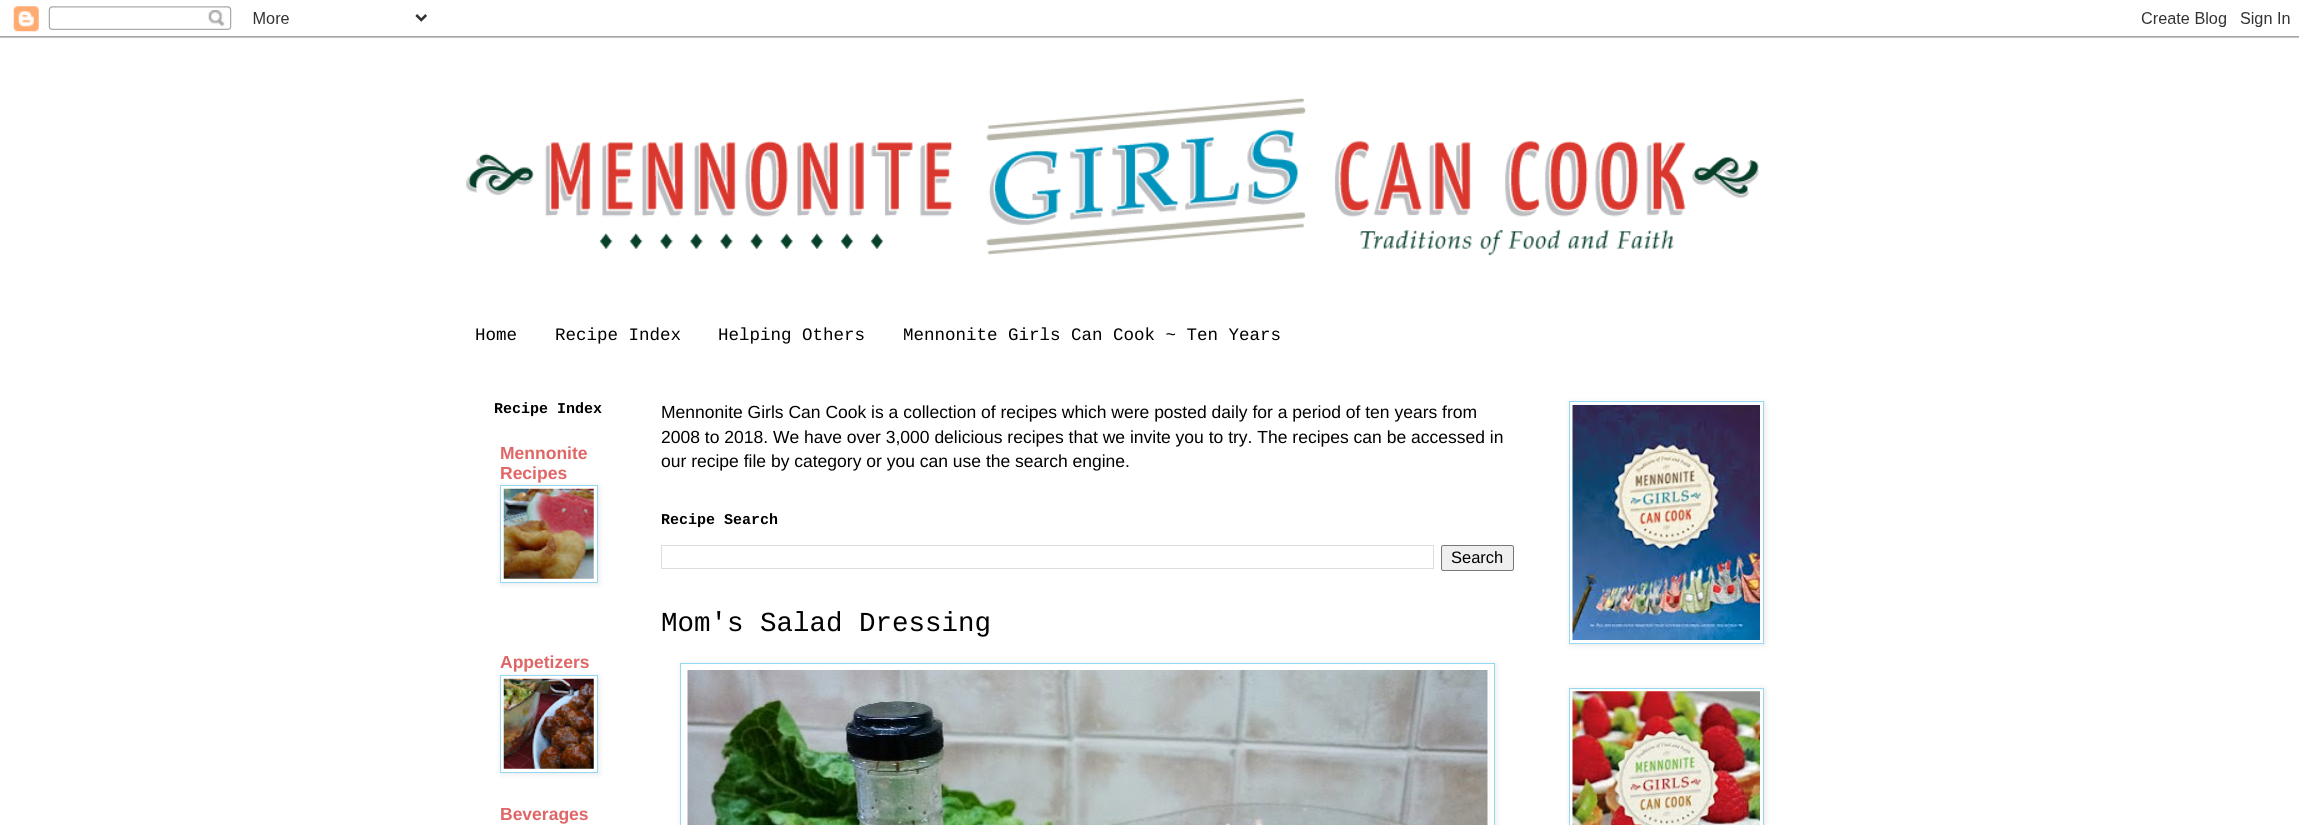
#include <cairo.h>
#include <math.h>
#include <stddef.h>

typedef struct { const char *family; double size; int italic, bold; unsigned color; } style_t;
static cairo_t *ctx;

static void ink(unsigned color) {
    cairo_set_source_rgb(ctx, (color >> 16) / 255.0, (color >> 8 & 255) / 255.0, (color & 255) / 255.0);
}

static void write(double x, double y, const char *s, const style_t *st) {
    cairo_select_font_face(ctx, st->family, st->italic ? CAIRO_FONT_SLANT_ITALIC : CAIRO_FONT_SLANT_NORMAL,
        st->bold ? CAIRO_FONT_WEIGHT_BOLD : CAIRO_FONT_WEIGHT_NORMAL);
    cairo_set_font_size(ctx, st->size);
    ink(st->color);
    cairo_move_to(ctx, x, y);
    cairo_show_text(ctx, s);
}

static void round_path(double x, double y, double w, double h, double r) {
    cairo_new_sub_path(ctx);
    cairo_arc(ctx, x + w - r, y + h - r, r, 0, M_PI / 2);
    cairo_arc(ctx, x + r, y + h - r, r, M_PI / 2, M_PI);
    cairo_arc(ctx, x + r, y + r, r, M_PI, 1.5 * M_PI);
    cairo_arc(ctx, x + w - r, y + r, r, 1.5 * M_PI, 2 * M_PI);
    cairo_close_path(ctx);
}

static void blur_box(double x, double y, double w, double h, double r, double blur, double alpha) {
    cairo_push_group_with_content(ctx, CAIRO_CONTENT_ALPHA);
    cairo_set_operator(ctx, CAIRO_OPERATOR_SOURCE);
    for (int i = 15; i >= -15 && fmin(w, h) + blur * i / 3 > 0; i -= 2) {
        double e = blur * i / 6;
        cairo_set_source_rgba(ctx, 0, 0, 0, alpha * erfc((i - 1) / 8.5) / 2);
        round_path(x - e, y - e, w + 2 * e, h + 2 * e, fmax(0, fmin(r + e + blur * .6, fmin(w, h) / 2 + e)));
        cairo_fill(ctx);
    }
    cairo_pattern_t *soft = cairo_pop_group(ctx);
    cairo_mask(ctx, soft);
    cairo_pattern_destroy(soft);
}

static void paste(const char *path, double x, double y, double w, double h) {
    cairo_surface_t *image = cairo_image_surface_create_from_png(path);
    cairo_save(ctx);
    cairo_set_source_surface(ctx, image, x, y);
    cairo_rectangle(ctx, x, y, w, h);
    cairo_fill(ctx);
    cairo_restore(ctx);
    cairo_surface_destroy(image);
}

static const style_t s1 = {"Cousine", 17.5, 0, 0, 0x000000};
static const style_t s2 = {"Cousine", 15, 0, 1, 0x000000};
static const style_t s3 = {"Liberation Sans", 17.5, 0, 1, 0xe06666};
static const style_t s4 = {"Liberation Sans", 17.5, 0, 0, 0x000000};
static const style_t s5 = {"Liberation Sans", 16.5, 0, 0, 0x000000};
static const style_t s6 = {"Cousine", 27.5, 0, 0, 0x000000};

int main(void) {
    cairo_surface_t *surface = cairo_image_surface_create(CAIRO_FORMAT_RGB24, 2299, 825);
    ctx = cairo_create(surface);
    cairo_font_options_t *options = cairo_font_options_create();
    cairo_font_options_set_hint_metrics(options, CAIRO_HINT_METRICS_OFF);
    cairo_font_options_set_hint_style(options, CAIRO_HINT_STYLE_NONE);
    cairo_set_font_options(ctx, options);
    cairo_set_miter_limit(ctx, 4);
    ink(0xffffff);
    cairo_paint(ctx);
    paste("pic1.png", 0, 6, 2299, 32);
    paste("pic2.png", 466, 98, 1293, 158);
    write(475, 340, "Home", &s1);
    write(555, 340, "Recipe Index", &s1);
    write(718, 340, "Helping Others", &s1);
    write(903, 340, "Mennonite Girls Can Cook ~ Ten Years", &s1);
    write(494, 413, "Recipe Index", &s2);
    write(500, 459, "Mennonite", &s3);
    write(500, 479, "Recipes", &s3);
    ink(0x000000);
    blur_box(501, 486, 98, 98, 0, 3, 0.1);
    ink(0xffffff);
    cairo_rectangle(ctx, 500.5, 485.5, 97, 97);
    cairo_fill_preserve(ctx);
    ink(0x94d8f4);
    cairo_set_line_width(ctx, 1);
    cairo_stroke(ctx);
    paste("pic3.png", 503, 488, 91, 91);
    write(500, 668, "Appetizers", &s3);
    ink(0x000000);
    blur_box(501, 676, 98, 98, 0, 3, 0.1);
    ink(0xffffff);
    cairo_rectangle(ctx, 500.5, 675.5, 97, 97);
    cairo_fill_preserve(ctx);
    ink(0x94d8f4);
    cairo_stroke(ctx);
    paste("pic4.png", 503, 678, 91, 91);
    write(500, 820, "Beverages", &s3);
    write(661, 418, "Mennonite Girls Can Cook is a collection of recipes which were posted daily for a period of ten years from", &s4);
    write(661, 443, "2008 to 2018. We have over 3,000 delicious recipes that we invite you to try. The recipes can be accessed in", &s4);
    write(661, 467, "our recipe file by category or you can use the search engine.", &s4);
    write(661, 524, "Recipe Search", &s2);
    cairo_rectangle(ctx, 661.5, 545.5, 772, 23);
    ink(0xdddddd);
    cairo_stroke(ctx);
    ink(0xefefef);
    round_path(1441.5, 545.5, 72, 25, 2);
    cairo_fill_preserve(ctx);
    ink(0x767676);
    cairo_stroke(ctx);
    write(1451, 563, "Search", &s5);
    write(661, 631, "Mom's Salad Dressing", &s6);
    cairo_save(ctx);
    cairo_set_fill_rule(ctx, CAIRO_FILL_RULE_EVEN_ODD);
    cairo_new_path(ctx);
    cairo_move_to(ctx, 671, 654);
    cairo_line_to(ctx, 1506, 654);
    cairo_line_to(ctx, 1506, 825);
    cairo_line_to(ctx, 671, 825);
    cairo_close_path(ctx);
    cairo_move_to(ctx, 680, 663);
    cairo_line_to(ctx, 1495, 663);
    cairo_line_to(ctx, 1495, 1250);
    cairo_line_to(ctx, 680, 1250);
    cairo_close_path(ctx);
    cairo_clip(ctx);
    ink(0x000000);
    blur_box(681, 664, 815, 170, 0, 3, 0.1);
    cairo_restore(ctx);
    cairo_rectangle(ctx, 680.5, 663.5, 814, 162);
    ink(0x94d8f4);
    cairo_stroke(ctx);
    paste("pic5.png", 687, 670, 801, 155);
    ink(0x000000);
    blur_box(1570, 403, 195, 242, 0, 3, 0.1);
    ink(0xffffff);
    cairo_rectangle(ctx, 1569.5, 401.5, 194, 242);
    cairo_fill_preserve(ctx);
    ink(0x94d8f4);
    cairo_stroke(ctx);
    paste("pic6.png", 1572, 405, 188, 235);
    ink(0x000000);
    blur_box(1570, 689, 195, 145, 0, 3, 0.1);
    ink(0xffffff);
    cairo_rectangle(ctx, 1569.5, 688.5, 194, 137);
    cairo_fill_preserve(ctx);
    ink(0x94d8f4);
    cairo_stroke(ctx);
    paste("pic7.png", 1572, 691, 188, 134);
    cairo_surface_write_to_png(surface, "screenshot.png");
    cairo_font_options_destroy(options);
    cairo_destroy(ctx);
    cairo_surface_destroy(surface);
    return 0;
}
